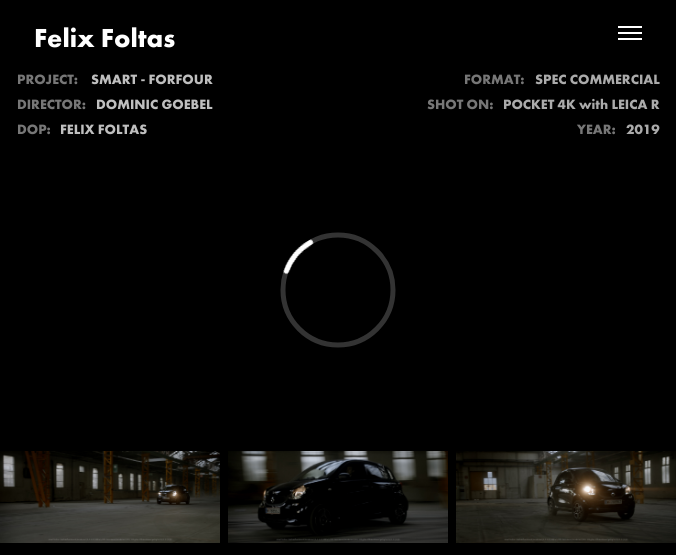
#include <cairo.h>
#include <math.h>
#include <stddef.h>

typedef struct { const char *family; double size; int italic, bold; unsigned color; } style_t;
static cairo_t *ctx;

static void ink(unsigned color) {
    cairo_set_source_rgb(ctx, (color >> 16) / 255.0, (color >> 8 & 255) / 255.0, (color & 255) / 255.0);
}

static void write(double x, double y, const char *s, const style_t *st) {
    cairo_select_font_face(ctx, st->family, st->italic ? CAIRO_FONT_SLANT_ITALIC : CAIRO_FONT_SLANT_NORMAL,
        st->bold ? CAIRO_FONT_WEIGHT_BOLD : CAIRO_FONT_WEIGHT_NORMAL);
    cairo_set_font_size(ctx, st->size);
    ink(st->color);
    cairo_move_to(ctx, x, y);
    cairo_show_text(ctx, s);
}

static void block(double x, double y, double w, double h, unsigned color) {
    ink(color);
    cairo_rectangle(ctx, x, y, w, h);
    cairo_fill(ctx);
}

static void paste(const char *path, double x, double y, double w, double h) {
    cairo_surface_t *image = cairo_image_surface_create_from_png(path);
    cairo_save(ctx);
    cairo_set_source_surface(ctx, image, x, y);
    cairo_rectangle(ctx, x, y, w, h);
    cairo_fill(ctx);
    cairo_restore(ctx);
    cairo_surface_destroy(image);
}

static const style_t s1 = {"Futura PT", 27, 0, 1, 0xffffff};
static const style_t s2 = {"Futura PT", 14, 0, 1, 0x777777};
static const style_t s3 = {"Futura PT", 14, 0, 1, 0xbfbfbf};
static const style_t s4 = {"Futura PT", 14, 0, 1, 0xababab};

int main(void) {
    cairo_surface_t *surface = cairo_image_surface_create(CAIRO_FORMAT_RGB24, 676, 555);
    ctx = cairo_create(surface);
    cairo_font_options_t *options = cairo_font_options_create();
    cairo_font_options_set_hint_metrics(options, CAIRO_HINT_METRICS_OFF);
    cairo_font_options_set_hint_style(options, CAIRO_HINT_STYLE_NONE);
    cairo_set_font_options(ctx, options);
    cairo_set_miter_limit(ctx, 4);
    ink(0x000000);
    cairo_paint(ctx);
    write(34, 47, "Felix Foltas", &s1);
    block(618, 26, 24, 2, 0xffffff);
    block(618, 32, 24, 2, 0xffffff);
    block(618, 38, 24, 2, 0xffffff);
    write(17, 84, "PROJECT:", &s2);
    write(91, 84, "SMART - FORFOUR", &s3);
    write(17, 109, "DIRECTOR:", &s2);
    write(96, 109, "DOMINIC GOEBEL", &s3);
    write(17, 134, "DOP:", &s2);
    write(60, 134, "FELIX FOLTAS", &s3);
    write(464, 84, "FORMAT:", &s2);
    write(535, 84, "SPEC COMMERCIAL", &s4);
    write(427, 109, "SHOT ON:", &s2);
    write(503, 109, "POCKET 4K with LEICA R", &s4);
    write(577, 134, "YEAR:", &s2);
    write(626, 134, "2019", &s4);
    paste("pic1.png", 280, 232, 116, 116);
    paste("pic2.png", 0, 451, 220, 92);
    paste("pic3.png", 228, 451, 220, 92);
    paste("pic4.png", 456, 451, 220, 92);
    cairo_surface_write_to_png(surface, "screenshot.png");
    cairo_font_options_destroy(options);
    cairo_destroy(ctx);
    cairo_surface_destroy(surface);
    return 0;
}
